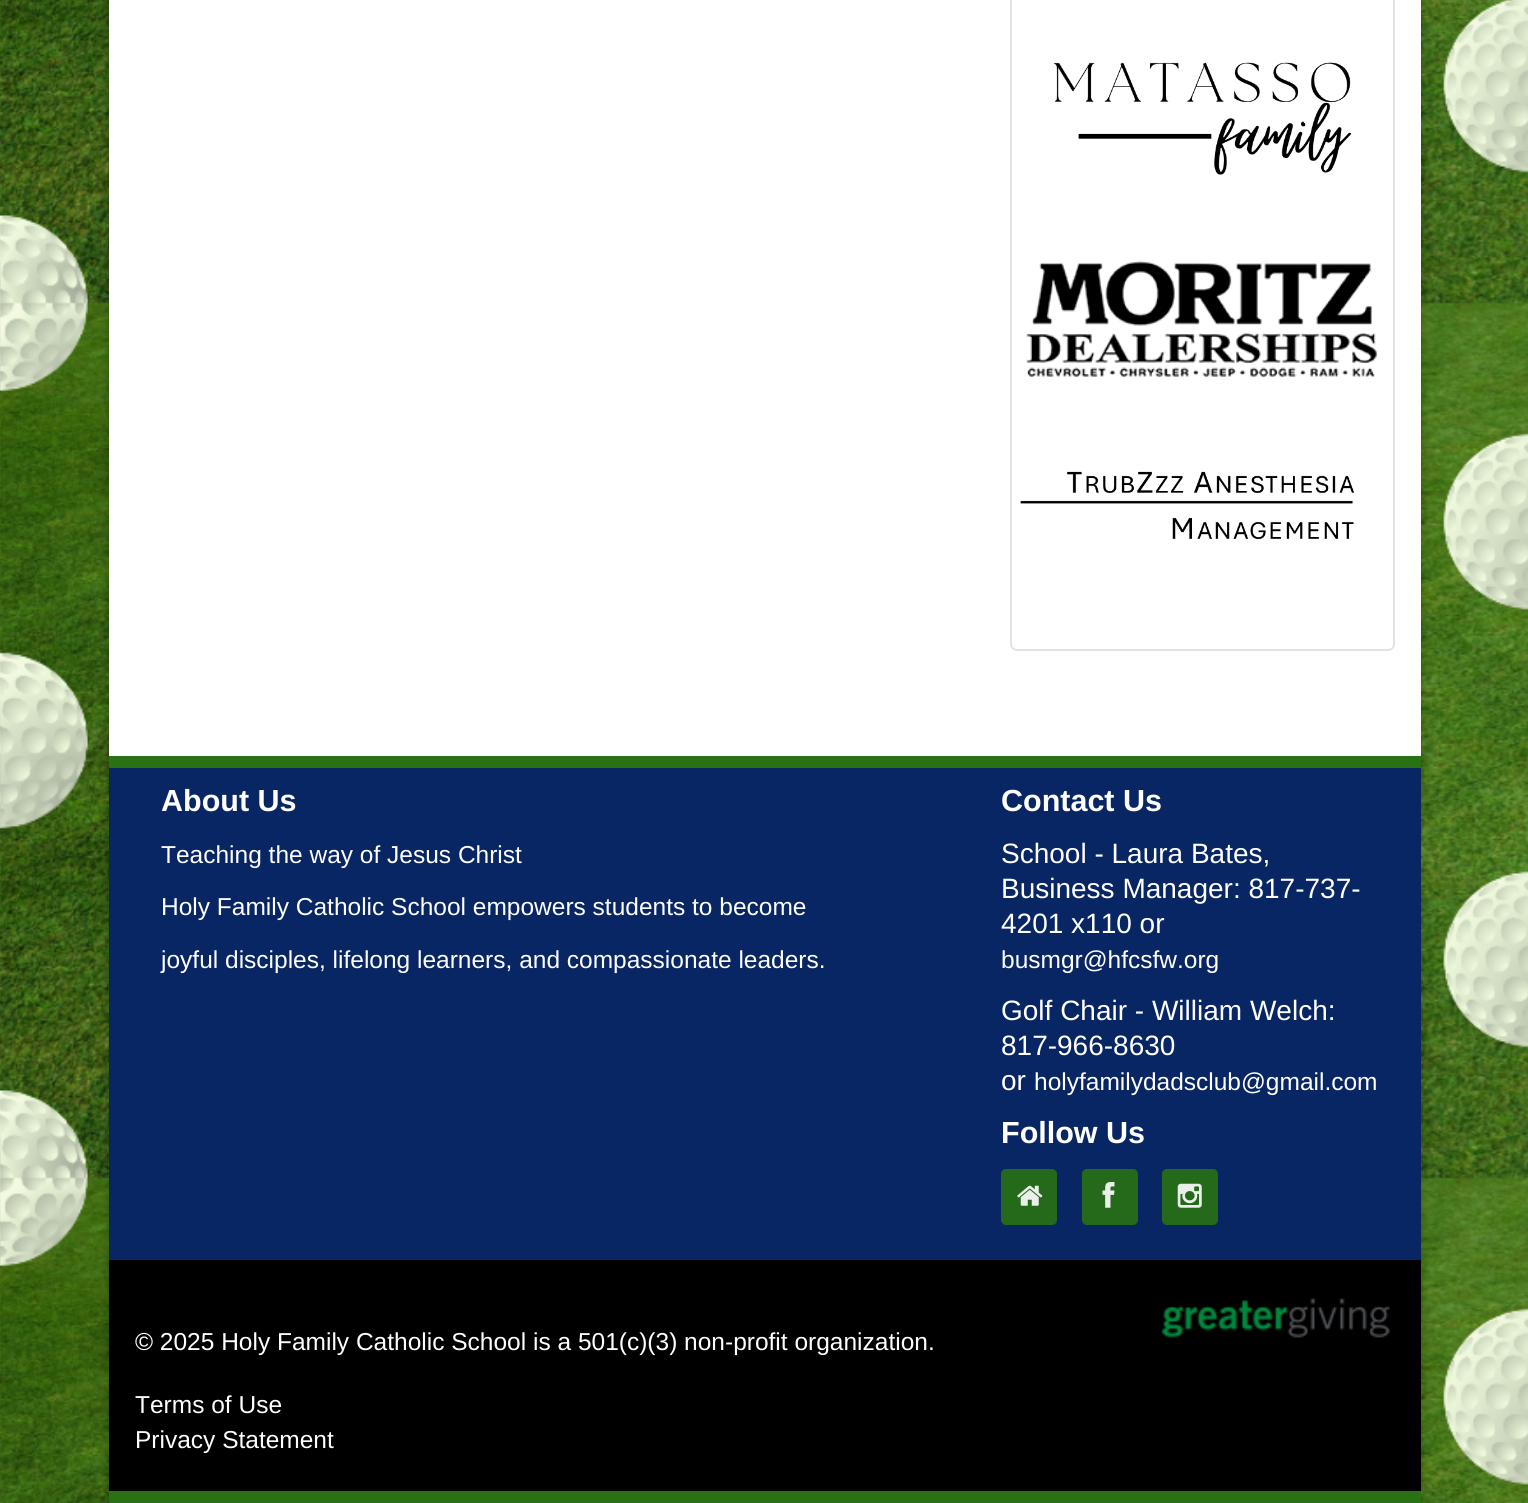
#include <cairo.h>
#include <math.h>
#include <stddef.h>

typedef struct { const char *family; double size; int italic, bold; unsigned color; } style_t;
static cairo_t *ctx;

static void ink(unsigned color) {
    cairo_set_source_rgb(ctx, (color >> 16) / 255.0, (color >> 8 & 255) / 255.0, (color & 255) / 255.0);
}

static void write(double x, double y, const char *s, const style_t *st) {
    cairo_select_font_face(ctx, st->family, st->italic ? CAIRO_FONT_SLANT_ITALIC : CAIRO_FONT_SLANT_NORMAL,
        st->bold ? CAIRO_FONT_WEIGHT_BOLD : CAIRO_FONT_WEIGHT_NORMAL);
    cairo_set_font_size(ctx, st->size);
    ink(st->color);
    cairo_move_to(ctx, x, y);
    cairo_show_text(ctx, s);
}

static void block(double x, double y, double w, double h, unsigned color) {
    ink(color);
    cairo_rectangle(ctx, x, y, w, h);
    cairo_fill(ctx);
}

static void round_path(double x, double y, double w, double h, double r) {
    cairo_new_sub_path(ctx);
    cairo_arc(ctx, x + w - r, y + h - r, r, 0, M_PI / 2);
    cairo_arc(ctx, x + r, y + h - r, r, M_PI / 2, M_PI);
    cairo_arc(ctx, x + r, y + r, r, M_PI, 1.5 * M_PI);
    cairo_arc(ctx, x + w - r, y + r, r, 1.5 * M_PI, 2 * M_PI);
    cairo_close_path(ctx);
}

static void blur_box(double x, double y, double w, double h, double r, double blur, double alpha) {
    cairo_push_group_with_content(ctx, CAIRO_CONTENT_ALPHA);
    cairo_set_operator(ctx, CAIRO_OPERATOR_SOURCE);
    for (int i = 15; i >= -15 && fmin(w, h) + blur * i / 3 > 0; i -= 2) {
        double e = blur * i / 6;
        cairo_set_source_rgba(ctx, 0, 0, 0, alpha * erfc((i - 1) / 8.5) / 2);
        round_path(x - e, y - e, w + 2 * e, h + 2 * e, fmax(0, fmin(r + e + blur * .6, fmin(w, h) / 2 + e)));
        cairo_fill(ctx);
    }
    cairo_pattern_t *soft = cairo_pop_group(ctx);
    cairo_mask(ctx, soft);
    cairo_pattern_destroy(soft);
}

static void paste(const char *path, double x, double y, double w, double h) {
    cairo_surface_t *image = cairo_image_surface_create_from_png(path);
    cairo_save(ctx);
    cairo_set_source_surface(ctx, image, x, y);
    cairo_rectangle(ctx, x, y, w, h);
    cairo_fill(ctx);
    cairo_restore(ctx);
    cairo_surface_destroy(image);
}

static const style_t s1 = {"Liberation Sans", 30.5, 0, 1, 0xffffff};
static const style_t s2 = {"Liberation Sans", 24.5, 0, 0, 0xffffff};
static const style_t s3 = {"Liberation Sans", 28, 0, 0, 0xffffff};

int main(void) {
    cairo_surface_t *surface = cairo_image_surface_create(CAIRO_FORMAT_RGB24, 1528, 1503);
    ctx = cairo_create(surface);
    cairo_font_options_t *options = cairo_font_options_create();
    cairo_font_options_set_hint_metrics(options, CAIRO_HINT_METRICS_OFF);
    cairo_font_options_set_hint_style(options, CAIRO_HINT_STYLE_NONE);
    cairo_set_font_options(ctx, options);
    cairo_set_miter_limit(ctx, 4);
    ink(0xffffff);
    cairo_paint(ctx);
    paste("pic1.png", 0, 0, 1528, 1503);
    ink(0x000000);
    blur_box(109, -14, 1312, 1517, 0, 4.5, 0.3);
    block(109, 0, 1312, 756, 0xffffff);
    round_path(1011, -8, 383, 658, 6);
    ink(0xe3e3e3);
    cairo_stroke(ctx);
    paste("pic2.png", 1053, 62, 299, 113);
    paste("pic3.png", 1026, 261, 352, 117);
    paste("pic4.png", 1020, 471, 335, 69);
    block(109, 768, 1312, 492, 0x092664);
    block(109, 756, 1312, 12, 0x287213);
    write(161, 811, "About Us", &s1);
    write(161, 863, "Teaching the way of Jesus Christ", &s2);
    write(161, 915, "Holy Family Catholic School empowers students to become", &s2);
    write(161, 968, "joyful disciples, lifelong learners, and compassionate leaders.", &s2);
    write(1001, 811, "Contact Us", &s1);
    write(1001, 863, "School - Laura Bates,", &s3);
    write(1001, 898, "Business Manager: 817-737-", &s3);
    write(1001, 933, "4201 x110 or", &s3);
    write(1001, 968, "busmgr@hfcsfw.org", &s2);
    write(1001, 1020, "Golf Chair - William Welch:", &s3);
    write(1001, 1055, "817-966-8630", &s3);
    write(1001, 1090, "or", &s3);
    write(1034, 1090, "holyfamilydadsclub@gmail.com", &s2);
    write(1001, 1143, "Follow Us", &s1);
    ink(0x256a1b);
    round_path(1001, 1169, 56, 56, 5);
    cairo_fill(ctx);
    paste("pic5.png", 1017, 1185, 26, 21);
    round_path(1082, 1169, 56, 56, 5);
    cairo_fill(ctx);
    paste("pic6.png", 1102, 1182, 13, 26);
    round_path(1162, 1169, 56, 56, 5);
    cairo_fill(ctx);
    paste("pic7.png", 1177, 1183, 25, 25);
    block(109, 1260, 1312, 231, 0x000000);
    block(109, 1491, 1312, 12, 0x287213);
    paste("pic8.png", 1161, 1298, 229, 40);
    write(135, 1350, "© 2025 Holy Family Catholic School is a 501(c)(3) non-profit organization.", &s2);
    write(135, 1413, "Terms of Use", &s2);
    write(135, 1448, "Privacy Statement", &s2);
    cairo_surface_write_to_png(surface, "screenshot.png");
    cairo_font_options_destroy(options);
    cairo_destroy(ctx);
    cairo_surface_destroy(surface);
    return 0;
}
